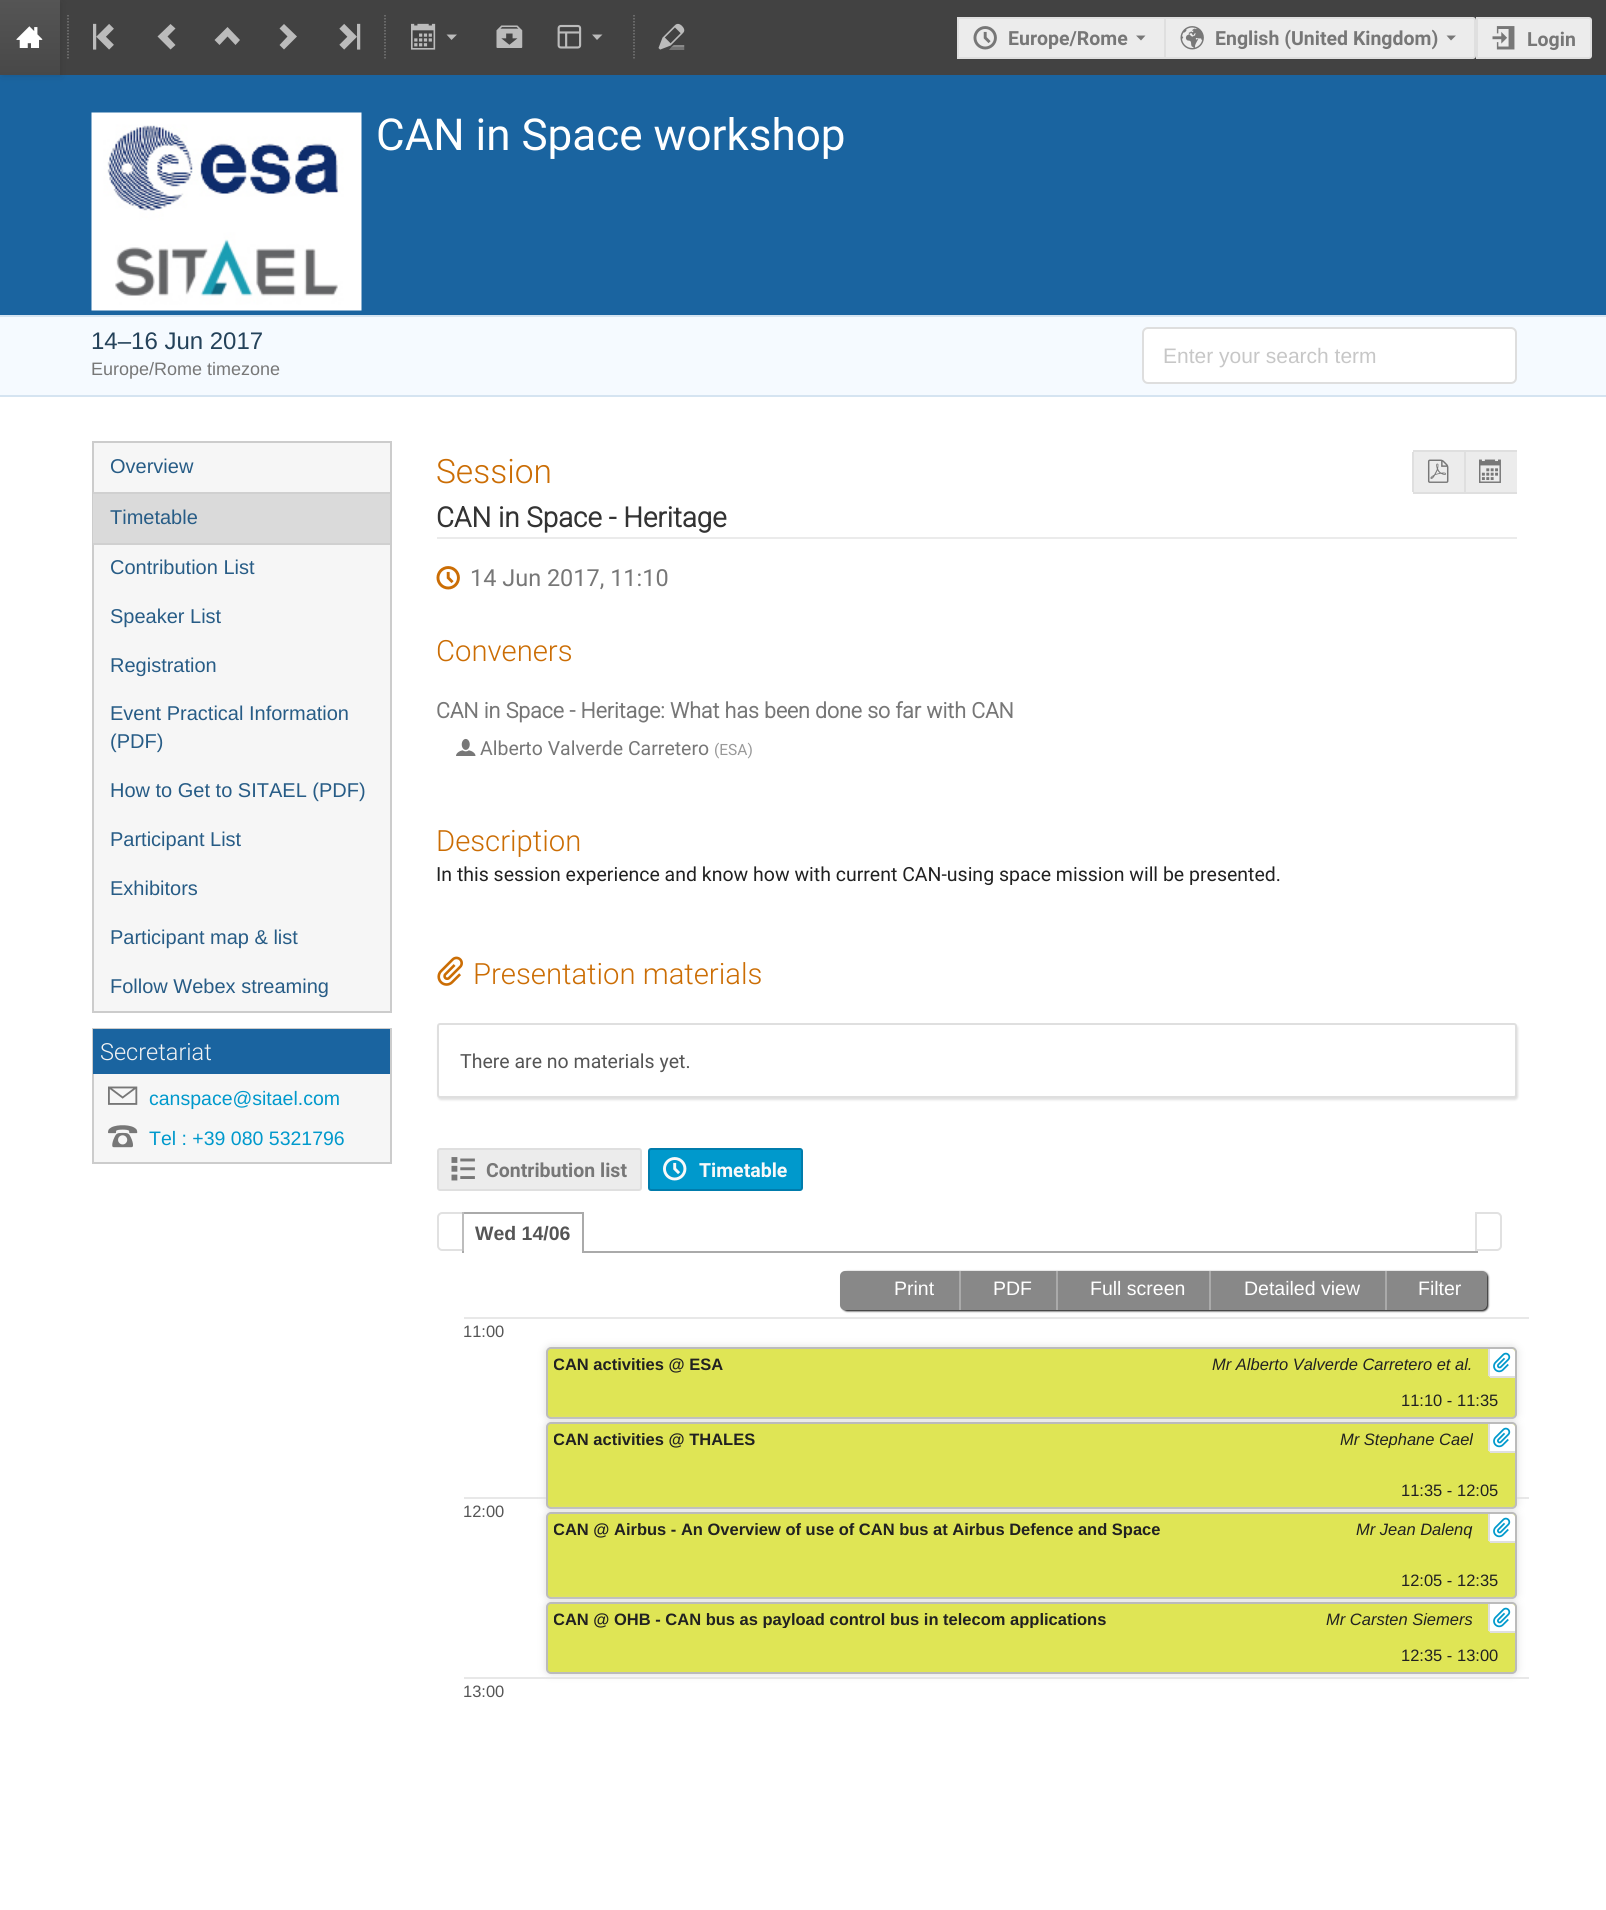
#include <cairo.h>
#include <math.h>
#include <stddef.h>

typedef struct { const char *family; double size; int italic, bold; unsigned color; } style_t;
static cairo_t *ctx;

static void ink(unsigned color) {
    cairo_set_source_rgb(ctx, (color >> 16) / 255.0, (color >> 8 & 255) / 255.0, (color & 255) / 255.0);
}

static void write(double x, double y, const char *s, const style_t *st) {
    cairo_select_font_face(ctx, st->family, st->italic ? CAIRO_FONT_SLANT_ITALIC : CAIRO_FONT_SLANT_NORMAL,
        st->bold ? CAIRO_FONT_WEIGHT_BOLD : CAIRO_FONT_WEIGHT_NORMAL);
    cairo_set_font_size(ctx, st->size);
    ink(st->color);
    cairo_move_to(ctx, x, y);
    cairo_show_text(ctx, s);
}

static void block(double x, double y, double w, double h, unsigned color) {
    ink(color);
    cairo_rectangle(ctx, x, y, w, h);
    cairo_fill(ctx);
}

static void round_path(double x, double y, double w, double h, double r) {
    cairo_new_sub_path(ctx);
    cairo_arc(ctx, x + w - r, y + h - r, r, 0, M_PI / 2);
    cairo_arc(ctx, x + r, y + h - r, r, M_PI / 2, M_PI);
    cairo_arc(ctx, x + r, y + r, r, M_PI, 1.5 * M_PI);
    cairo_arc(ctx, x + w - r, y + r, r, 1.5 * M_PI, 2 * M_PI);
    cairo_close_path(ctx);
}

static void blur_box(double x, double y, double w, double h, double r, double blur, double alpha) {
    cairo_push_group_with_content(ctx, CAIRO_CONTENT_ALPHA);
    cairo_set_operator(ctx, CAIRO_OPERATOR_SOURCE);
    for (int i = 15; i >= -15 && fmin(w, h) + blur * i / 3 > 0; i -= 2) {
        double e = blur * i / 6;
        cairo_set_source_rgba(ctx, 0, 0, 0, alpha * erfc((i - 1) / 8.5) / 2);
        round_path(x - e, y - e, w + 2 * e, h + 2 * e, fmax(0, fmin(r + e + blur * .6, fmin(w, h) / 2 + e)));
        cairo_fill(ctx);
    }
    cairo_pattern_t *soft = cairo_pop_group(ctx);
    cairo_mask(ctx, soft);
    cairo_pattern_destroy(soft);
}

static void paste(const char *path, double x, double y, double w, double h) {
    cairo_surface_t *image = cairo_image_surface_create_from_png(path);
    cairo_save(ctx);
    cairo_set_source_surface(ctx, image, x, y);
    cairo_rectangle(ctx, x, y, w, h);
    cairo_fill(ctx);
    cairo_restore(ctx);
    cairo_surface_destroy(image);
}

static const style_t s1 = {"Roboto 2", 19.5, 0, 1, 0x777777};
static const style_t s2 = {"Roboto", 44, 0, 0, 0xffffff};
static const style_t s3 = {"Liberation Sans", 24, 0, 0, 0x24425a};
static const style_t s4 = {"Liberation Sans", 18, 0, 0, 0x777777};
static const style_t s5 = {"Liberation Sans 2", 21, 0, 0, 0xc7c7c7};
static const style_t s6 = {"Liberation Sans 2", 20, 0, 0, 0x275c86};
static const style_t s7 = {"Roboto Light", 23.5, 0, 0, 0xf3f3f3};
static const style_t s8 = {"Liberation Sans", 19.5, 0, 0, 0x0099cc};
static const style_t s9 = {"Roboto Light", 33.5, 0, 0, 0xcb6d04};
static const style_t s10 = {"Roboto", 27.8, 0, 1, 0x333333};
static const style_t s11 = {"Roboto", 23.5, 0, 0, 0x777777};
static const style_t s12 = {"Roboto Light", 29.25, 0, 0, 0xcb6d04};
static const style_t s13 = {"Roboto", 21.45, 0, 1, 0x777777};
static const style_t s14 = {"Roboto", 19.5, 0, 0, 0x777777};
static const style_t s15 = {"Roboto", 15.5, 0, 0, 0x999999};
static const style_t s16 = {"Roboto", 19.5, 0, 0, 0x212121};
static const style_t s17 = {"Roboto", 19.5, 0, 0, 0x555555};
static const style_t s18 = {"Roboto 2", 19.5, 0, 1, 0xf9f9f9};
static const style_t s19 = {"Liberation Sans", 19.5, 0, 1, 0x555555};
static const style_t s20 = {"Liberation Sans", 19.5, 0, 0, 0xffffff};
static const style_t s21 = {"Liberation Sans", 16.5, 0, 0, 0x555555};
static const style_t s22 = {"Liberation Sans", 16.5, 0, 1, 0x212121};
static const style_t s23 = {"Liberation Sans", 16.5, 1, 0, 0x212121};
static const style_t s24 = {"Liberation Sans", 16.5, 0, 0, 0x212121};

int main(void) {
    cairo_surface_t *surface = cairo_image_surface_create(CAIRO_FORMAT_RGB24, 1606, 1910);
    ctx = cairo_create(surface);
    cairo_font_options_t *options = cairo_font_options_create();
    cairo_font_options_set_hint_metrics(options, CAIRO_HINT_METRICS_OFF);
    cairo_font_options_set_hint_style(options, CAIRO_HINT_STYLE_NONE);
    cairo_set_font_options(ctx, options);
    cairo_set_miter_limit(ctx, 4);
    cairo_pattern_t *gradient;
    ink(0xffffff);
    cairo_paint(ctx);
    block(60, 0, 1546, 75, 0x424242);
    block(0, 75, 1606, 240, 0x1a64a0);
    ink(0x141414);
    blur_box(2, 2, 60, 75, 0, 3, 0.1);
    gradient = cairo_pattern_create_linear(30, 0, 30, 75);
    cairo_pattern_add_color_stop_rgba(gradient, 0, 0.333, 0.333, 0.333, 1);
    cairo_pattern_add_color_stop_rgba(gradient, 1, 0.282, 0.282, 0.282, 1);
    cairo_set_source(ctx, gradient);
    cairo_pattern_destroy(gradient);
    cairo_rectangle(ctx, 0, 0, 60, 75);
    cairo_fill(ctx);
    paste("pic1.png", 16, 26, 27, 22);
    cairo_new_path(ctx);
    cairo_move_to(ctx, 68, 15);
    cairo_line_to(ctx, 68, 60);
    ink(0x777777);
    cairo_set_line_width(ctx, 1.5);
    cairo_set_dash(ctx, (double[]){1.5, 1.5}, 2, 0);
    cairo_stroke(ctx);
    paste("pic2.png", 93, 23, 21, 27);
    ink(0xbbbbbb);
    cairo_new_path(ctx);
    cairo_move_to(ctx, 170.5, 49.5);
    cairo_line_to(ctx, 175.5, 45);
    cairo_line_to(ctx, 167.5, 36.5);
    cairo_line_to(ctx, 175.5, 28.5);
    cairo_line_to(ctx, 170.5, 24);
    cairo_line_to(ctx, 157.5, 36.5);
    cairo_close_path(ctx);
    cairo_fill(ctx);
    cairo_new_path(ctx);
    cairo_move_to(ctx, 214.5, 40);
    cairo_line_to(ctx, 219.5, 45);
    cairo_line_to(ctx, 227.5, 36.5);
    cairo_line_to(ctx, 235.5, 45);
    cairo_line_to(ctx, 240, 40);
    cairo_line_to(ctx, 227.5, 27);
    cairo_close_path(ctx);
    cairo_fill(ctx);
    cairo_new_path(ctx);
    cairo_move_to(ctx, 284, 24);
    cairo_line_to(ctx, 279.5, 28.5);
    cairo_line_to(ctx, 287.5, 36.5);
    cairo_line_to(ctx, 279.5, 45);
    cairo_line_to(ctx, 284, 49.5);
    cairo_line_to(ctx, 297, 36.5);
    cairo_close_path(ctx);
    cairo_fill(ctx);
    paste("pic3.png", 339, 23, 22, 27);
    cairo_new_path(ctx);
    cairo_move_to(ctx, 385, 15);
    cairo_line_to(ctx, 385, 60);
    ink(0x777777);
    cairo_stroke(ctx);
    paste("pic4.png", 411, 23, 25, 27);
    ink(0xbbbbbb);
    cairo_new_path(ctx);
    cairo_move_to(ctx, 446.5, 34.5);
    cairo_line_to(ctx, 451.5, 40);
    cairo_line_to(ctx, 457, 34.5);
    cairo_close_path(ctx);
    cairo_fill(ctx);
    paste("pic5.png", 496, 25, 27, 23);
    paste("pic6.png", 557, 24, 25, 25);
    cairo_new_path(ctx);
    cairo_move_to(ctx, 592, 34.5);
    cairo_line_to(ctx, 597, 40);
    cairo_line_to(ctx, 602.5, 34.5);
    cairo_close_path(ctx);
    cairo_fill(ctx);
    cairo_new_path(ctx);
    cairo_move_to(ctx, 634, 15);
    cairo_line_to(ctx, 634, 60);
    ink(0x777777);
    cairo_stroke(ctx);
    paste("pic7.png", 658, 23, 27, 27);
    block(959, 19, 205, 38, 0xececec);
    block(957, 17, 207, 2, 0xdfdfdf);
    block(957, 57, 207, 2, 0xdfdfdf);
    block(957, 17, 2, 42, 0xdfdfdf);
    paste("pic8.png", 973, 26, 24, 24);
    write(1008, 45, "Europe/Rome", &s1);
    cairo_new_path(ctx);
    cairo_move_to(ctx, 1136, 35.5);
    cairo_line_to(ctx, 1141, 40.5);
    cairo_line_to(ctx, 1145.5, 35.5);
    cairo_close_path(ctx);
    cairo_fill(ctx);
    ink(0xececec);
    cairo_new_path(ctx);
    cairo_move_to(ctx, 1165, 18);
    cairo_line_to(ctx, 1473, 18);
    cairo_curve_to(ctx, 1474, 18, 1475, 19, 1475, 20);
    cairo_line_to(ctx, 1475, 56);
    cairo_curve_to(ctx, 1475, 57, 1474, 58, 1473, 58);
    cairo_line_to(ctx, 1165, 58);
    cairo_close_path(ctx);
    cairo_fill_preserve(ctx);
    ink(0xdfdfdf);
    cairo_set_line_width(ctx, 2);
    cairo_set_dash(ctx, NULL, 0, 0);
    cairo_stroke(ctx);
    paste("pic9.png", 1180, 26, 24, 24);
    write(1215, 45, "English (United Kingdom)", &s1);
    cairo_new_path(ctx);
    cairo_move_to(ctx, 1446.5, 35.5);
    cairo_line_to(ctx, 1451, 40.5);
    cairo_line_to(ctx, 1456, 35.5);
    cairo_close_path(ctx);
    cairo_fill(ctx);
    ink(0xececec);
    cairo_new_path(ctx);
    cairo_move_to(ctx, 1477, 18);
    cairo_line_to(ctx, 1589, 18);
    cairo_curve_to(ctx, 1590, 18, 1591, 19, 1591, 20);
    cairo_line_to(ctx, 1591, 56);
    cairo_curve_to(ctx, 1591, 57, 1590, 58, 1589, 58);
    cairo_line_to(ctx, 1477, 58);
    cairo_close_path(ctx);
    cairo_fill_preserve(ctx);
    ink(0xdfdfdf);
    cairo_stroke(ctx);
    paste("pic10.png", 1492, 26, 23, 24);
    write(1527, 46, "Login", &s1);
    paste("pic11.png", 91, 112, 271, 199);
    write(376, 150, "CAN in Space workshop", &s2);
    block(0, 317, 1606, 78, 0xf5faff);
    block(0, 315, 1606, 2, 0xd5e4f1);
    block(0, 395, 1606, 2, 0xd5e4f1);
    write(91, 349, "14–16 Jun 2017", &s3);
    write(91, 375, "Europe/Rome timezone", &s4);
    ink(0xffffff);
    round_path(1143, 328, 373, 55, 5);
    cairo_fill_preserve(ctx);
    ink(0xdedede);
    cairo_stroke(ctx);
    write(1163, 363, "Enter your search term", &s5);
    ink(0xf6f6f6);
    cairo_rectangle(ctx, 93, 442, 298, 570);
    cairo_fill_preserve(ctx);
    ink(0xcccccc);
    cairo_stroke(ctx);
    write(110, 473, "Overview", &s6);
    block(93, 494, 297, 49, 0xdadada);
    block(93, 492, 297, 2, 0xd0d0d0);
    block(93, 543, 297, 2, 0xd0d0d0);
    write(110, 524, "Timetable", &s6);
    write(110, 574, "Contribution List", &s6);
    write(110, 623, "Speaker List", &s6);
    write(110, 672, "Registration", &s6);
    write(110, 720, "Event Practical Information", &s6);
    write(110, 748, "(PDF)", &s6);
    write(110, 797, "How to Get to SITAEL (PDF)", &s6);
    write(110, 846, "Participant List", &s6);
    write(110, 895, "Exhibitors", &s6);
    write(110, 944, "Participant map & list", &s6);
    write(110, 993, "Follow Webex streaming", &s6);
    block(94, 1074, 296, 88, 0xf6f6f6);
    cairo_rectangle(ctx, 93, 1029, 298, 134);
    ink(0xcccccc);
    cairo_stroke(ctx);
    block(93, 1029, 297, 45, 0x1a64a0);
    write(100, 1060, "Secretariat", &s7);
    paste("pic12.png", 108, 1086, 30, 19);
    write(149, 1105, "canspace@sitael.com", &s8);
    paste("pic13.png", 108, 1125, 30, 23);
    write(149, 1145, "Tel : +39 080 5321796", &s8);
    block(437, 537, 1080, 2, 0xebebeb);
    write(436, 483, "Session", &s9);
    write(436, 527, "CAN in Space - Heritage", &s10);
    block(1414, 452, 50, 40, 0xececec);
    block(1413, 450, 104, 2, 0xdfdfdf);
    block(1413, 492, 104, 2, 0xdfdfdf);
    block(1412, 452, 2, 40, 0xdfdfdf);
    paste("pic14.png", 1427, 459, 22, 24);
    block(1466, 452, 51, 40, 0xececec);
    block(1464, 450, 2, 44, 0xdfdfdf);
    paste("pic15.png", 1479, 459, 22, 24);
    paste("pic16.png", 436, 566, 24, 24);
    write(470, 586, "14 Jun 2017, 11:10", &s11);
    write(436, 661, "Conveners", &s12);
    write(436, 718, "CAN in Space - Heritage: What has been done so far with CAN", &s13);
    paste("pic17.png", 456, 738, 20, 18);
    write(480, 755, "Alberto Valverde Carretero", &s14);
    write(714, 755, "(ESA)", &s15);
    write(436, 851, "Description", &s12);
    write(436, 881, "In this session experience and know how with current CAN-using space mission will be presented.", &s16);
    paste("pic18.png", 437, 956, 26, 30);
    write(473, 984, "Presentation materials", &s12);
    ink(0xe1e1e1);
    blur_box(438, 1025, 1080, 75, 3, 1, 1);
    ink(0xffffff);
    round_path(438, 1024, 1078, 73, 2);
    cairo_fill_preserve(ctx);
    ink(0xdfdfdf);
    cairo_stroke(ctx);
    write(460, 1068, "There are no materials yet.", &s17);
    ink(0xececec);
    round_path(438, 1149, 203, 41, 2);
    cairo_fill_preserve(ctx);
    ink(0xdfdfdf);
    cairo_stroke(ctx);
    paste("pic19.png", 451, 1157, 24, 24);
    write(486, 1177, "Contribution list", &s1);
    ink(0x0099cc);
    round_path(649, 1149, 153, 41, 2);
    cairo_fill_preserve(ctx);
    ink(0x007cac);
    cairo_stroke(ctx);
    paste("pic20.png", 663, 1157, 24, 24);
    write(699, 1177, "Timetable", &s18);
    block(462, 1212, 122, 2, 0xaaaaaa);
    block(462, 1212, 2, 41, 0xaaaaaa);
    cairo_set_source_rgba(ctx, 1, 1, 1, 0.35);
    cairo_new_path(ctx);
    cairo_move_to(ctx, 442, 1212);
    cairo_line_to(ctx, 464, 1212);
    cairo_line_to(ctx, 464, 1251);
    cairo_line_to(ctx, 442, 1251);
    cairo_curve_to(ctx, 439, 1251, 437, 1249, 437, 1246);
    cairo_line_to(ctx, 437, 1217);
    cairo_curve_to(ctx, 437, 1214, 439, 1212, 442, 1212);
    cairo_close_path(ctx);
    cairo_fill(ctx);
    cairo_new_path(ctx);
    cairo_move_to(ctx, 442, 1213);
    cairo_line_to(ctx, 463, 1213);
    cairo_line_to(ctx, 463, 1250);
    cairo_line_to(ctx, 442, 1250);
    cairo_curve_to(ctx, 440, 1250, 438, 1248, 438, 1246);
    cairo_line_to(ctx, 438, 1217);
    cairo_curve_to(ctx, 438, 1215, 440, 1213, 442, 1213);
    cairo_close_path(ctx);
    cairo_set_source_rgba(ctx, 0.667, 0.667, 0.667, 0.35);
    cairo_stroke(ctx);
    cairo_new_path(ctx);
    cairo_move_to(ctx, 1476, 1213);
    cairo_line_to(ctx, 1497, 1213);
    cairo_curve_to(ctx, 1499, 1213, 1501, 1215, 1501, 1217);
    cairo_line_to(ctx, 1501, 1246);
    cairo_curve_to(ctx, 1501, 1248, 1499, 1250, 1497, 1250);
    cairo_line_to(ctx, 1476, 1250);
    cairo_close_path(ctx);
    ink(0xe1e1e1);
    cairo_stroke(ctx);
    block(584, 1251, 894, 2, 0xaaaaaa);
    block(582, 1212, 2, 41, 0xaaaaaa);
    write(475, 1240, "Wed 14/06", &s19);
    ink(0x000000);
    blur_box(842, 1272, 646, 39, 5, 1, 1);
    ink(0x888888);
    round_path(840, 1271, 647, 39, 5);
    cairo_fill(ctx);
    write(894, 1295, "Print", &s20);
    block(959, 1271, 2, 39, 0xaaaaaa);
    write(993, 1295, "PDF", &s20);
    block(1056, 1271, 2, 39, 0xaaaaaa);
    write(1090, 1295, "Full screen", &s20);
    block(1209, 1271, 2, 39, 0xaaaaaa);
    write(1244, 1295, "Detailed view", &s20);
    block(1385, 1271, 2, 39, 0xaaaaaa);
    write(1418, 1295, "Filter", &s20);
    block(464, 1317, 1065, 2, 0xe8e8e8);
    write(463, 1337, "11:00", &s21);
    block(464, 1497, 1065, 2, 0xe8e8e8);
    write(463, 1517, "12:00", &s21);
    block(464, 1677, 1065, 2, 0xe8e8e8);
    write(463, 1697, "13:00", &s21);
    ink(0xdddddd);
    blur_box(546, 1347, 971, 72, 5, 4, 1);
    ink(0xdfe555);
    round_path(547, 1348, 969, 70, 4);
    cairo_fill_preserve(ctx);
    ink(0xbbbbbb);
    cairo_stroke(ctx);
    cairo_save(ctx);
    cairo_rectangle(ctx, 554, 1355, 169, 18);
    cairo_clip(ctx);
    write(553, 1370, "CAN activities @ ESA", &s22);
    cairo_restore(ctx);
    write(1212, 1370, "Mr Alberto Valverde Carretero et al.", &s23);
    ink(0xffffff);
    cairo_new_path(ctx);
    cairo_move_to(ctx, 1488, 1349);
    cairo_line_to(ctx, 1512, 1349);
    cairo_curve_to(ctx, 1513.5, 1349, 1515, 1350.5, 1515, 1352);
    cairo_line_to(ctx, 1515, 1377);
    cairo_line_to(ctx, 1491, 1377);
    cairo_curve_to(ctx, 1489.5, 1377, 1488, 1375.5, 1488, 1374);
    cairo_close_path(ctx);
    cairo_fill(ctx);
    block(1490, 1376, 25, 2, 0xdfdfdf);
    block(1488, 1349, 2, 27, 0xdfdfdf);
    paste("pic21.png", 1493, 1352, 18, 21);
    write(1401, 1406, "11:10 - 11:35", &s24);
    ink(0xdddddd);
    blur_box(546, 1422, 971, 87, 5, 4, 1);
    ink(0xdfe555);
    round_path(547, 1423, 969, 85, 4);
    cairo_fill_preserve(ctx);
    ink(0xbbbbbb);
    cairo_stroke(ctx);
    cairo_save(ctx);
    cairo_rectangle(ctx, 554, 1430, 202, 18);
    cairo_clip(ctx);
    write(553, 1445, "CAN activities @ THALES", &s22);
    cairo_restore(ctx);
    cairo_save(ctx);
    cairo_rectangle(ctx, 1340, 1430, 133, 18);
    cairo_clip(ctx);
    write(1340, 1445, "Mr Stephane Cael", &s23);
    cairo_restore(ctx);
    ink(0xffffff);
    cairo_new_path(ctx);
    cairo_move_to(ctx, 1488, 1424);
    cairo_line_to(ctx, 1512, 1424);
    cairo_curve_to(ctx, 1513.5, 1424, 1515, 1425.5, 1515, 1427);
    cairo_line_to(ctx, 1515, 1452);
    cairo_line_to(ctx, 1491, 1452);
    cairo_curve_to(ctx, 1489.5, 1452, 1488, 1450.5, 1488, 1449);
    cairo_close_path(ctx);
    cairo_fill(ctx);
    block(1490, 1451, 25, 2, 0xdfdfdf);
    block(1488, 1424, 2, 27, 0xdfdfdf);
    paste("pic21.png", 1493, 1427, 18, 21);
    write(1401, 1496, "11:35 - 12:05", &s24);
    ink(0xdddddd);
    blur_box(546, 1512, 971, 87, 5, 4, 1);
    ink(0xdfe555);
    round_path(547, 1513, 969, 85, 4);
    cairo_fill_preserve(ctx);
    ink(0xbbbbbb);
    cairo_stroke(ctx);
    cairo_save(ctx);
    cairo_rectangle(ctx, 554, 1520, 607, 18);
    cairo_clip(ctx);
    write(553, 1535, "CAN @ Airbus - An Overview of use of CAN bus at Airbus Defence and Space", &s22);
    cairo_restore(ctx);
    write(1356, 1535, "Mr Jean Dalenq", &s23);
    ink(0xffffff);
    cairo_new_path(ctx);
    cairo_move_to(ctx, 1488, 1514);
    cairo_line_to(ctx, 1512, 1514);
    cairo_curve_to(ctx, 1513.5, 1514, 1515, 1515.5, 1515, 1517);
    cairo_line_to(ctx, 1515, 1542);
    cairo_line_to(ctx, 1491, 1542);
    cairo_curve_to(ctx, 1489.5, 1542, 1488, 1540.5, 1488, 1539);
    cairo_close_path(ctx);
    cairo_fill(ctx);
    block(1490, 1541, 25, 2, 0xdfdfdf);
    block(1488, 1514, 2, 27, 0xdfdfdf);
    paste("pic21.png", 1493, 1517, 18, 21);
    write(1401, 1586, "12:05 - 12:35", &s24);
    ink(0xdddddd);
    blur_box(546, 1602, 971, 72, 5, 4, 1);
    ink(0xdfe555);
    round_path(547, 1603, 969, 70, 4);
    cairo_fill_preserve(ctx);
    ink(0xbbbbbb);
    cairo_stroke(ctx);
    cairo_save(ctx);
    cairo_rectangle(ctx, 554, 1610, 553, 18);
    cairo_clip(ctx);
    write(553, 1625, "CAN @ OHB - CAN bus as payload control bus in telecom applications", &s22);
    cairo_restore(ctx);
    write(1326, 1625, "Mr Carsten Siemers", &s23);
    ink(0xffffff);
    cairo_new_path(ctx);
    cairo_move_to(ctx, 1488, 1604);
    cairo_line_to(ctx, 1512, 1604);
    cairo_curve_to(ctx, 1513.5, 1604, 1515, 1605.5, 1515, 1607);
    cairo_line_to(ctx, 1515, 1632);
    cairo_line_to(ctx, 1491, 1632);
    cairo_curve_to(ctx, 1489.5, 1632, 1488, 1630.5, 1488, 1629);
    cairo_close_path(ctx);
    cairo_fill(ctx);
    block(1490, 1631, 25, 2, 0xdfdfdf);
    block(1488, 1604, 2, 27, 0xdfdfdf);
    paste("pic21.png", 1493, 1607, 18, 21);
    write(1401, 1661, "12:35 - 13:00", &s24);
    cairo_surface_write_to_png(surface, "screenshot.png");
    cairo_font_options_destroy(options);
    cairo_destroy(ctx);
    cairo_surface_destroy(surface);
    return 0;
}
